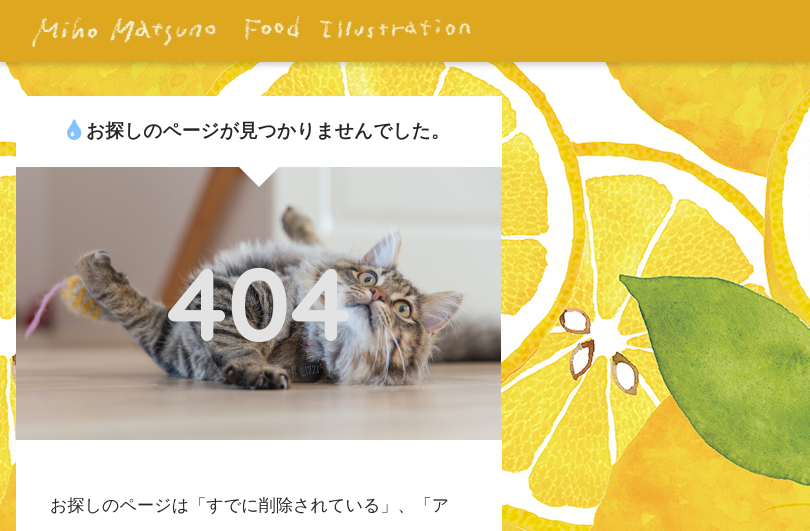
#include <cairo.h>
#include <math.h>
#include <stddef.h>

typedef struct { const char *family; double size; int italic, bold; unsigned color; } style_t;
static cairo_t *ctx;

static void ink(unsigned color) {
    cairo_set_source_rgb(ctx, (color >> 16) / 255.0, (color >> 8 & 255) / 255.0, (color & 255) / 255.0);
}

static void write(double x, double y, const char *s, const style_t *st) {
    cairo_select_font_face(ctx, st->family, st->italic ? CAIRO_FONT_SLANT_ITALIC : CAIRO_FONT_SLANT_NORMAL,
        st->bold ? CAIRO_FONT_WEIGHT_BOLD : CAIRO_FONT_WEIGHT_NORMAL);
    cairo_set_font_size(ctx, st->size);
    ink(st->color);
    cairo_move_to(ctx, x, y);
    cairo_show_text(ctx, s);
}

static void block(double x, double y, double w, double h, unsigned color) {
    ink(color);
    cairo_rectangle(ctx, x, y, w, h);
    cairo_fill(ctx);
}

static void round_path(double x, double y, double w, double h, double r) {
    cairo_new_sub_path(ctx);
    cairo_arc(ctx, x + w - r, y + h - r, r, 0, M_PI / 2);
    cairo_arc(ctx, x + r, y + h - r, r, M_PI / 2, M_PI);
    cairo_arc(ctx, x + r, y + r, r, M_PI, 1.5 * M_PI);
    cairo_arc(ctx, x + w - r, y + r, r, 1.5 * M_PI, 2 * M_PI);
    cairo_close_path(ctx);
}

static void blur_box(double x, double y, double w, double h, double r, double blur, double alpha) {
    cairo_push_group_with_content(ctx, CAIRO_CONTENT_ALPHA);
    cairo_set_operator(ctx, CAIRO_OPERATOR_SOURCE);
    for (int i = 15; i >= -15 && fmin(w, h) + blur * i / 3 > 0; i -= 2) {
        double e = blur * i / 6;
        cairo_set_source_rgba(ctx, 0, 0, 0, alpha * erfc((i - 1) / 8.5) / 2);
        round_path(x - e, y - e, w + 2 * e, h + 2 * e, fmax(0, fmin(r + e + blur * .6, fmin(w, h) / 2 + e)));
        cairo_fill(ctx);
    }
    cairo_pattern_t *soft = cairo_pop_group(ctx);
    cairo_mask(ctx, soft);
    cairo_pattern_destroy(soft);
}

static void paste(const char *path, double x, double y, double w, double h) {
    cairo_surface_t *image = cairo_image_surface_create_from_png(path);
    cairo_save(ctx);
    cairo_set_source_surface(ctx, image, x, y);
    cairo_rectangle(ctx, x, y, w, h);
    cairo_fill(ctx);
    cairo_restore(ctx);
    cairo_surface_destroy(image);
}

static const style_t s1 = {"WenQuanYi Zen Hei", 18.8, 0, 1, 0x252525};
static const style_t s2 = {"Quicksand", 103, 0, 1, 0xe4e3e3};
static const style_t s3 = {"WenQuanYi Zen Hei Medium", 17.1, 0, 0, 0x252525};

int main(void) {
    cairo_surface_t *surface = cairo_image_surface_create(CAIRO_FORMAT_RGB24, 810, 531);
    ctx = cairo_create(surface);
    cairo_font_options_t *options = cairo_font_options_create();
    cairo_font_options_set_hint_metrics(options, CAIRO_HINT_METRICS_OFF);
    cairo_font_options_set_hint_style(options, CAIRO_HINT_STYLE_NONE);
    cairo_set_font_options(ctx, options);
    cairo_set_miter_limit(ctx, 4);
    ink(0xffffff);
    cairo_paint(ctx);
    paste("pic1.png", 0, 62, 810, 469);
    ink(0x000000);
    blur_box(0, 3, 810, 62, 0, 3, 0.18);
    block(0, 0, 810, 62, 0xdda71f);
    paste("pic2.png", 32, 15, 439, 33);
    block(16, 96, 486, 71, 0xffffff);
    paste("pic3.png", 67, 119, 15, 21);
    write(86, 137, "お探しのページが見つかりませんでした。", &s1);
    paste("pic4.png", 16, 167, 485, 273);
    ink(0xffffff);
    cairo_new_path(ctx);
    cairo_move_to(ctx, 239, 167);
    cairo_line_to(ctx, 279, 167);
    cairo_line_to(ctx, 259, 187);
    cairo_close_path(ctx);
    cairo_fill(ctx);
    write(167, 341, "404", &s2);
    block(16, 440, 486, 91, 0xffffff);
    write(50, 511, "お探しのページは「すでに削除されている」、「ア", &s3);
    cairo_surface_write_to_png(surface, "screenshot.png");
    cairo_font_options_destroy(options);
    cairo_destroy(ctx);
    cairo_surface_destroy(surface);
    return 0;
}
